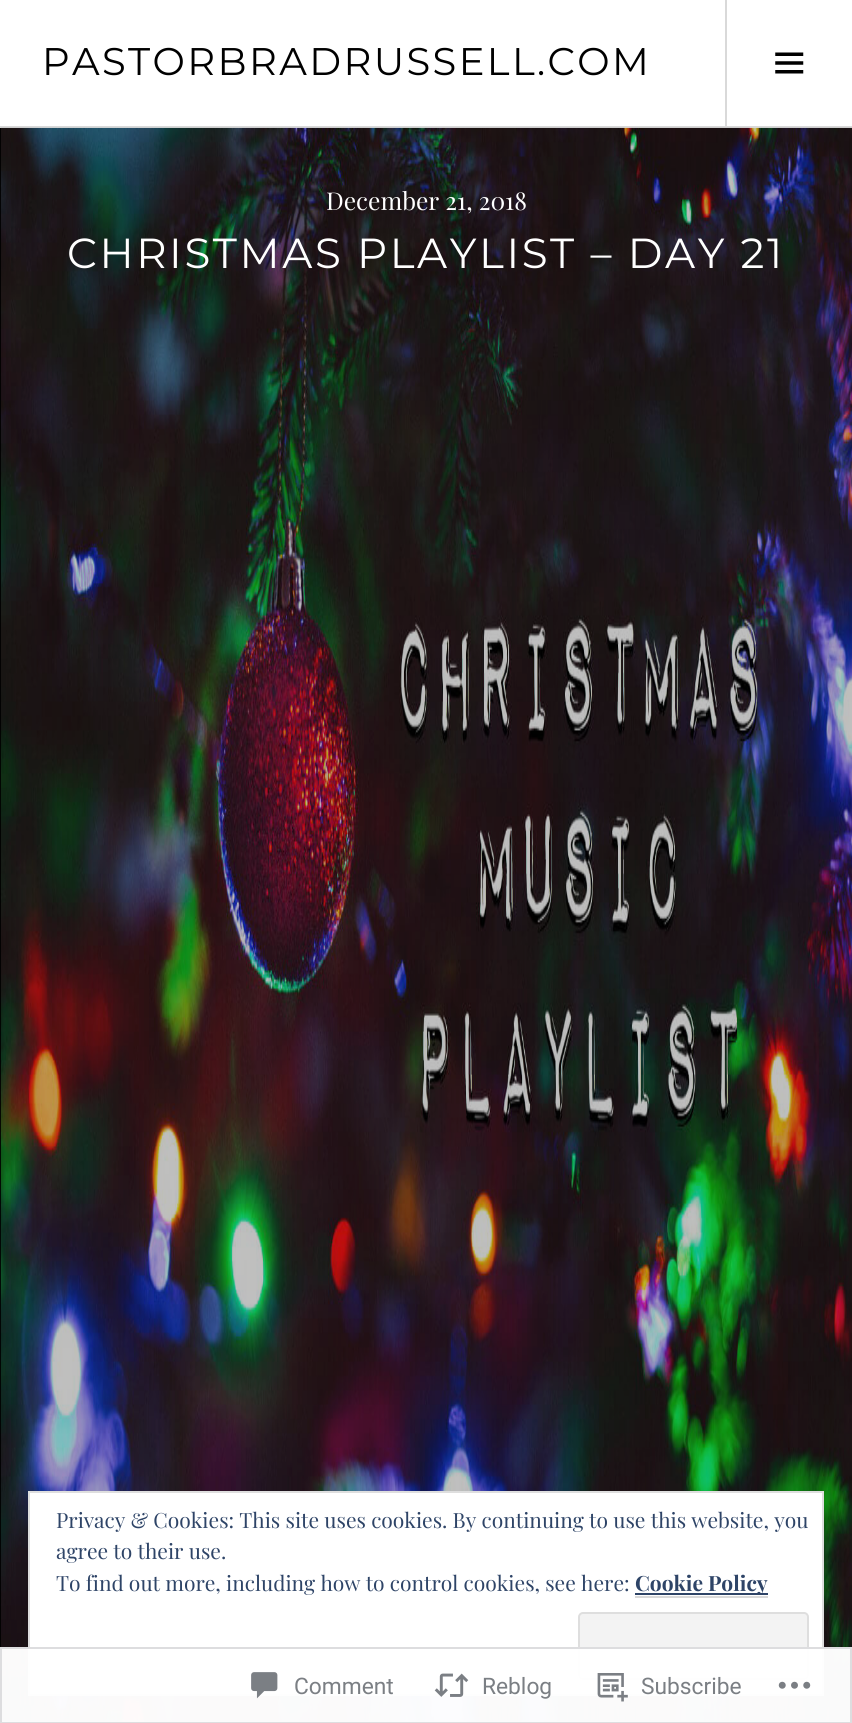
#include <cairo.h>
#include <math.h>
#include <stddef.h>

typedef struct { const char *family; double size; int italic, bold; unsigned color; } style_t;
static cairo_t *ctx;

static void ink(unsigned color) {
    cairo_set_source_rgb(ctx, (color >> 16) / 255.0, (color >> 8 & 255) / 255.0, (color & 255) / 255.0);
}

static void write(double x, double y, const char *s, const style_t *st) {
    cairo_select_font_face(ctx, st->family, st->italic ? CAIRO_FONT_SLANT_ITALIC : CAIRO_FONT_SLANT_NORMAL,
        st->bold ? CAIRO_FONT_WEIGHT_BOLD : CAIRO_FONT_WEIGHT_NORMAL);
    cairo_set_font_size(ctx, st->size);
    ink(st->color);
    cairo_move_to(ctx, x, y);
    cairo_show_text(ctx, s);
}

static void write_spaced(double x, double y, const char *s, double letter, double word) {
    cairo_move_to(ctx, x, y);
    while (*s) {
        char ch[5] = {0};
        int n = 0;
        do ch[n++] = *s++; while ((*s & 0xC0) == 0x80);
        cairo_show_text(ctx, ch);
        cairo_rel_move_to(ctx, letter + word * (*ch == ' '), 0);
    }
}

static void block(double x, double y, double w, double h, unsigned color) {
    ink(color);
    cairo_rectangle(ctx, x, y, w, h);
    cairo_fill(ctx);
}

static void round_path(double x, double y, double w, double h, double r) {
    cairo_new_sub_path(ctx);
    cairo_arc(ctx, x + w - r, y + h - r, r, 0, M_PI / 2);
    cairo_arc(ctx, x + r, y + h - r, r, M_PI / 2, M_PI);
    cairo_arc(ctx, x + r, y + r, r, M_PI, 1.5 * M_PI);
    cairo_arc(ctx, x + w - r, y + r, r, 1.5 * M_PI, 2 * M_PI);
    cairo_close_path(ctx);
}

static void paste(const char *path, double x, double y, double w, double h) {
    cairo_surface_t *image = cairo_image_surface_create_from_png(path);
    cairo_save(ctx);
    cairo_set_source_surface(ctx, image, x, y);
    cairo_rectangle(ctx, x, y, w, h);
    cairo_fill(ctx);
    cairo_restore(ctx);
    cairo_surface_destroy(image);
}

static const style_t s1 = {"Playfair Display", 24.5, 0, 0, 0xffffff};
static const style_t s2 = {"Playfair Display", 21, 0, 0, 0x2e4467};
static const style_t s3 = {"Playfair Display", 21, 0, 1, 0x2e4467};
static const style_t s4 = {"Roboto", 22.75, 0, 0, 0x7b7f84};

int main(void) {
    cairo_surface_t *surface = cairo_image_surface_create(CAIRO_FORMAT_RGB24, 852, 1723);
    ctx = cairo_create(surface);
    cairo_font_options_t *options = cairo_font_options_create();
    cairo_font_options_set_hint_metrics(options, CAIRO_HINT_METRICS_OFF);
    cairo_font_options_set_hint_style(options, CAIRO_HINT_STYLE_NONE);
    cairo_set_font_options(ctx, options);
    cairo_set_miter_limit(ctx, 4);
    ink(0xffffff);
    cairo_paint(ctx);
    block(0, 126, 852, 2, 0xd9d9d9);
    cairo_select_font_face(ctx, "Montserrat", CAIRO_FONT_SLANT_NORMAL, CAIRO_FONT_WEIGHT_NORMAL);
    cairo_set_font_size(ctx, 38.5);
    ink(0x000000);
    write_spaced(42, 75, "PASTORBRADRUSSELL.COM", 2.4, 0);
    block(725, 0, 2, 126, 0xd9d9d9);
    paste("pic1.png", 775, 52, 29, 22);
    block(0, 128, 1, 1595, 0x000000);
    paste("pic2.png", 0, 127, 852, 1596);
    write(326, 210, "December 21, 2018", &s1);
    cairo_select_font_face(ctx, "Montserrat", CAIRO_FONT_SLANT_NORMAL, CAIRO_FONT_WEIGHT_NORMAL);
    cairo_set_font_size(ctx, 42);
    write_spaced(67, 268, "CHRISTMAS PLAYLIST – DAY 21", 2.6, 0);
    cairo_rectangle(ctx, 29, 1492, 794, 203);
    cairo_fill_preserve(ctx);
    ink(0xdedede);
    cairo_stroke(ctx);
    write(56, 1528, "Privacy & Cookies: This site uses cookies. By continuing to use this website, you", &s2);
    write(56, 1559, "agree to their use.", &s2);
    write(56, 1591, "To find out more, including how to control cookies, see here:", &s2);
    block(635, 1593, 133, 2, 0x2e4467);
    write(635, 1591, "Cookie Policy", &s3);
    block(635, 1596, 133, 2, 0xd9d9d9);
    ink(0xf3f3f3);
    round_path(579, 1613, 229, 66, 4);
    cairo_fill_preserve(ctx);
    ink(0xdedede);
    cairo_stroke(ctx);
    cairo_set_source_rgba(ctx, 1, 1, 1, 0.98);
    cairo_rectangle(ctx, 0, 1647, 852, 76);
    cairo_fill(ctx);
    cairo_rectangle(ctx, 1, 1648, 850, 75);
    cairo_set_source_rgba(ctx, 0.863, 0.863, 0.871, 0.98);
    cairo_stroke(ctx);
    paste("pic3.png", 251, 1672, 27, 27);
    write(294, 1694, "Comment", &s4);
    paste("pic4.png", 434, 1673, 35, 24);
    write(482, 1694, "Reblog", &s4);
    paste("pic5.png", 597, 1673, 31, 29);
    write(641, 1694, "Subscribe", &s4);
    paste("pic6.png", 778, 1681, 33, 8);
    cairo_surface_write_to_png(surface, "screenshot.png");
    cairo_font_options_destroy(options);
    cairo_destroy(ctx);
    cairo_surface_destroy(surface);
    return 0;
}
